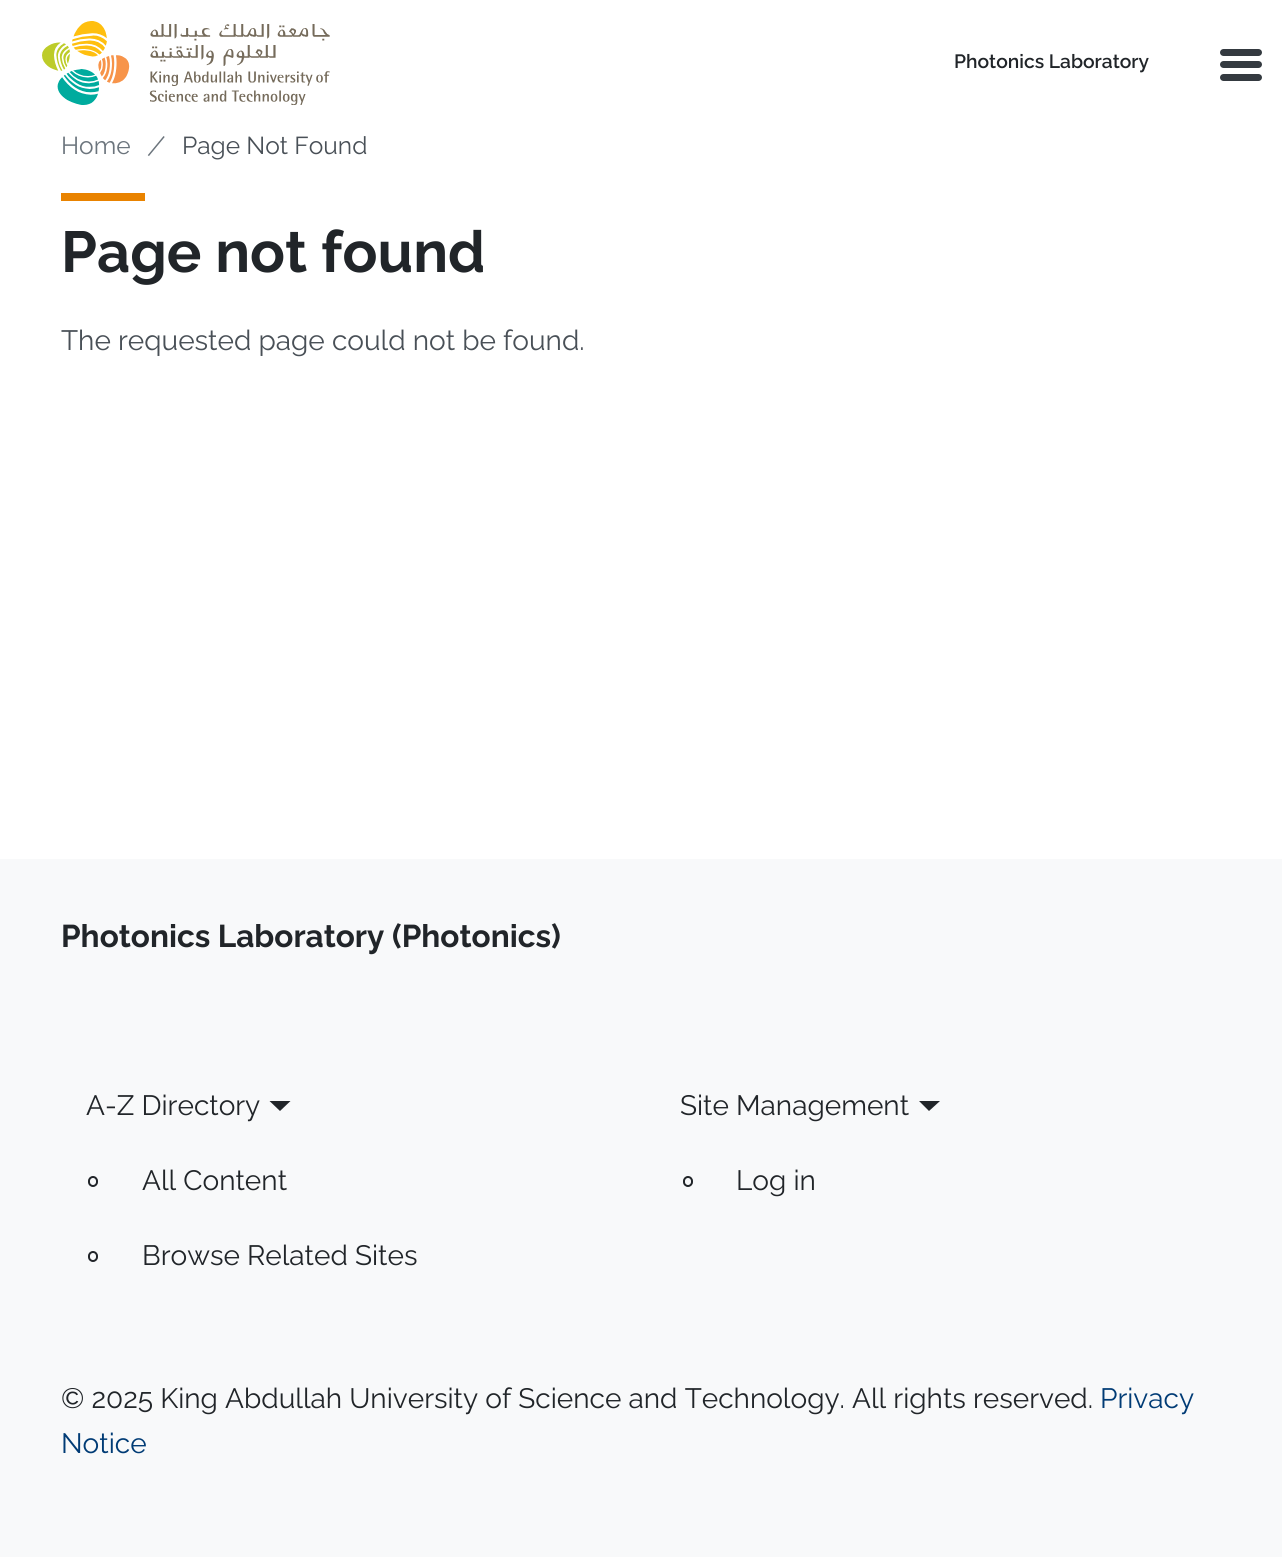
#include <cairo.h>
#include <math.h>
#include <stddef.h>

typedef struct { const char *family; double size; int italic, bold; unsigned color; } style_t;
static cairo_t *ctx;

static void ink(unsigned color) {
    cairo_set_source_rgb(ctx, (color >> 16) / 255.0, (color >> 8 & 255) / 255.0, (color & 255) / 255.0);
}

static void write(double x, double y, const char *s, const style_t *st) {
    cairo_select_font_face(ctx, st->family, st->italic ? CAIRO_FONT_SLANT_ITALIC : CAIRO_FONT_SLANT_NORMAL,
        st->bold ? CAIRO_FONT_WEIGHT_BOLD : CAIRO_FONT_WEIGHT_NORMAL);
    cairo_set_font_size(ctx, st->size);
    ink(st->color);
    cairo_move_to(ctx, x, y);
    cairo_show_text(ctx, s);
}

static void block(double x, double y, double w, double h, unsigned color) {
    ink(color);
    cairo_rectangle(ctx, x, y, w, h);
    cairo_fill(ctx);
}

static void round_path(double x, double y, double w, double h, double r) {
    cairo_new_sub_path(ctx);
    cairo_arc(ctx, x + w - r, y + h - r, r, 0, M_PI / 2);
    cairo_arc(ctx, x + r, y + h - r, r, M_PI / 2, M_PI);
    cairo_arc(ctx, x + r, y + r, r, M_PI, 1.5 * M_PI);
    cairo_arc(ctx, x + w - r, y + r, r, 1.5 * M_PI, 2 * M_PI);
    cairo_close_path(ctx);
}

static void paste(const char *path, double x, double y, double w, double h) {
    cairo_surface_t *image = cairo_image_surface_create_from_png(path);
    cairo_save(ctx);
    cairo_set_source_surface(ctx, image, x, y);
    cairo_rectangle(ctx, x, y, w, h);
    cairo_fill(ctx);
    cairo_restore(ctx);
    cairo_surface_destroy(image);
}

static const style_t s1 = {"Raleway SemiBold", 19.25, 0, 0, 0x212529};
static const style_t s2 = {"Raleway", 24.5, 0, 0, 0x6c757d};
static const style_t s3 = {"Raleway", 28, 0, 0, 0x6c757d};
static const style_t s4 = {"Raleway", 24.5, 0, 0, 0x495057};
static const style_t s5 = {"Raleway", 57.75, 0, 1, 0x212529};
static const style_t s6 = {"Raleway", 28, 0, 0, 0x495057};
static const style_t s7 = {"Raleway", 31.5, 0, 1, 0x212529};
static const style_t s8 = {"Raleway", 28, 0, 0, 0x212529};
static const style_t s9 = {"Raleway", 28, 0, 0, 0x003b75};

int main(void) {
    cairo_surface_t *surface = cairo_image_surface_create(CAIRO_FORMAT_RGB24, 1282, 1557);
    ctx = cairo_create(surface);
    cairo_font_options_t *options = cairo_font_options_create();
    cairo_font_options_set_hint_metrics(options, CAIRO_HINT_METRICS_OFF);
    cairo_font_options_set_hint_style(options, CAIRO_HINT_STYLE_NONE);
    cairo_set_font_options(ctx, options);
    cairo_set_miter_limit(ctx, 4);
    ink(0xffffff);
    cairo_paint(ctx);
    paste("pic1.png", 42, 21, 288, 84);
    write(954, 68, "Photonics Laboratory", &s1);
    ink(0x343a40);
    round_path(1220, 61, 42, 7, 3.5);
    cairo_fill(ctx);
    round_path(1220, 49, 42, 7, 3.5);
    cairo_fill(ctx);
    round_path(1220, 74, 42, 7, 3.5);
    cairo_fill(ctx);
    write(61, 154, "Home", &s2);
    write(148, 156, "∕", &s3);
    write(182, 154, "Page Not Found", &s4);
    block(61, 193, 84, 8, 0xe98300);
    write(61, 272, "Page not found", &s5);
    write(61, 350, "The requested page could not be found.", &s6);
    block(0, 859, 1282, 698, 0xf8f9fa);
    write(61, 947, "Photonics Laboratory (Photonics)", &s7);
    write(86, 1115, "A-Z Directory", &s8);
    cairo_new_path(ctx);
    cairo_move_to(ctx, 269.5, 1101);
    cairo_line_to(ctx, 290.5, 1101);
    cairo_line_to(ctx, 280, 1111);
    cairo_close_path(ctx);
    cairo_fill(ctx);
    round_path(89, 1177, 8, 9, 4);
    cairo_stroke(ctx);
    write(142, 1190, "All Content", &s8);
    round_path(89, 1252, 8, 9, 4);
    cairo_stroke(ctx);
    write(142, 1265, "Browse Related Sites", &s8);
    write(680, 1115, "Site Management", &s8);
    cairo_new_path(ctx);
    cairo_move_to(ctx, 919, 1101);
    cairo_line_to(ctx, 940, 1101);
    cairo_line_to(ctx, 929, 1111);
    cairo_close_path(ctx);
    cairo_fill(ctx);
    round_path(684, 1177, 8, 9, 4);
    cairo_stroke(ctx);
    write(736, 1190, "Log in", &s8);
    write(61, 1408, "© 2025 King Abdullah University of Science and Technology. All rights reserved.", &s8);
    write(1100, 1408, "Privacy", &s9);
    write(61, 1453, "Notice", &s9);
    cairo_surface_write_to_png(surface, "screenshot.png");
    cairo_font_options_destroy(options);
    cairo_destroy(ctx);
    cairo_surface_destroy(surface);
    return 0;
}
